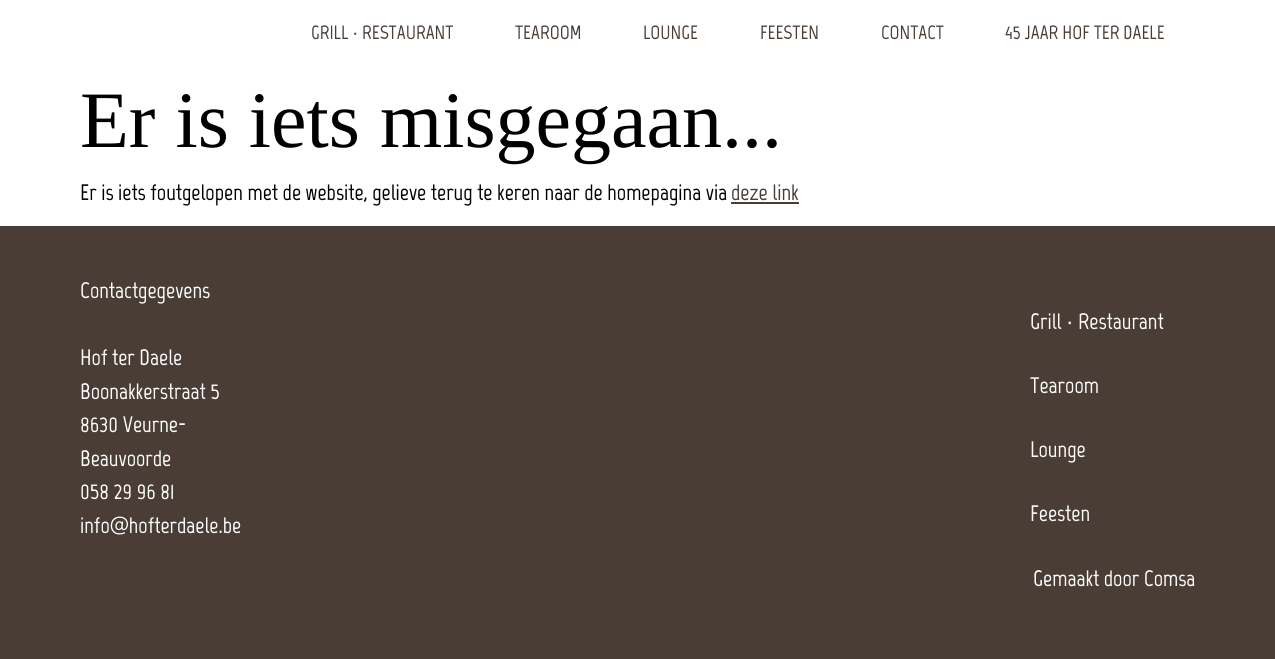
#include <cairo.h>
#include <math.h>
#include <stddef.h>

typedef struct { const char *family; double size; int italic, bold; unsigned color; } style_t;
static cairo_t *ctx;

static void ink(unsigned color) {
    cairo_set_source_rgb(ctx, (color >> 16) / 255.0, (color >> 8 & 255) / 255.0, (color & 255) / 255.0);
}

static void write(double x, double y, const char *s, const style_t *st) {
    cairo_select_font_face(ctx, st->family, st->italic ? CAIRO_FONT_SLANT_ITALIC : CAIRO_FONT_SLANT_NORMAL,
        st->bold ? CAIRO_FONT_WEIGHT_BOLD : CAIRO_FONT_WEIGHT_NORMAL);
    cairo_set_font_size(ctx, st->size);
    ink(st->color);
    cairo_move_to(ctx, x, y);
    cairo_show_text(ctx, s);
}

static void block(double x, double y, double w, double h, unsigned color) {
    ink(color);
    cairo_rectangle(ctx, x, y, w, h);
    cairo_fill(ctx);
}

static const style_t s1 = {"Marvel", 19.25, 0, 1, 0x493d36};
static const style_t s2 = {"Liberation Sans", 19.25, 0, 0, 0x493d36};
static const style_t s3 = {"Liberation Serif", 80, 0, 0, 0x000000};
static const style_t s4 = {"Marvel", 22.4, 0, 1, 0x000000};
static const style_t s5 = {"Marvel", 22.4, 0, 1, 0x493d36};
static const style_t s6 = {"Marvel", 22.4, 0, 1, 0xffffff};
static const style_t s7 = {"Liberation Sans", 22.4, 0, 0, 0xffffff};

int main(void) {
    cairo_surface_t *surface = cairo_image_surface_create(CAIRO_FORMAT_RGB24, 1275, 659);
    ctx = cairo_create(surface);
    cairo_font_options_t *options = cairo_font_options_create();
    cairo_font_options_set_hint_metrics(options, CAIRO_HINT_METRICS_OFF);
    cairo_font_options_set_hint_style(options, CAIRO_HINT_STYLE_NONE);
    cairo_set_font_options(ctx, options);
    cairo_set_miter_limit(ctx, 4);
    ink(0xffffff);
    cairo_paint(ctx);
    write(311, 39, "GRILL", &s1);
    write(352, 39, "·", &s2);
    write(362, 39, "RESTAURANT", &s1);
    write(515, 39, "TEAROOM", &s1);
    write(643, 39, "LOUNGE", &s1);
    write(760, 39, "FEESTEN", &s1);
    write(881, 39, "CONTACT", &s1);
    write(1005, 39, "45 JAAR HOF TER DAELE", &s1);
    write(80, 147, "Er is iets misgegaan...", &s3);
    write(80, 200, "Er is iets foutgelopen met de website, gelieve terug te keren naar de homepagina via", &s4);
    write(731, 200, "deze link", &s5);
    block(731, 202, 68, 2, 0x493d36);
    block(0, 226, 1275, 433, 0x493d36);
    write(80, 298, "Contactgegevens", &s6);
    write(80, 365, "Hof ter Daele", &s6);
    write(80, 399, "Boonakkerstraat 5", &s6);
    write(80, 432, "8630 Veurne-", &s6);
    write(80, 466, "Beauvoorde", &s6);
    write(80, 499, "058 29 96 81", &s6);
    write(80, 533, "info@hofterdaele.be", &s6);
    write(1030, 329, "Grill", &s6);
    write(1066, 329, "·", &s7);
    write(1078, 329, "Restaurant", &s6);
    write(1030, 393, "Tearoom", &s6);
    write(1030, 457, "Lounge", &s6);
    write(1030, 521, "Feesten", &s6);
    write(1033, 586, "Gemaakt door Comsa", &s6);
    cairo_surface_write_to_png(surface, "screenshot.png");
    cairo_font_options_destroy(options);
    cairo_destroy(ctx);
    cairo_surface_destroy(surface);
    return 0;
}
